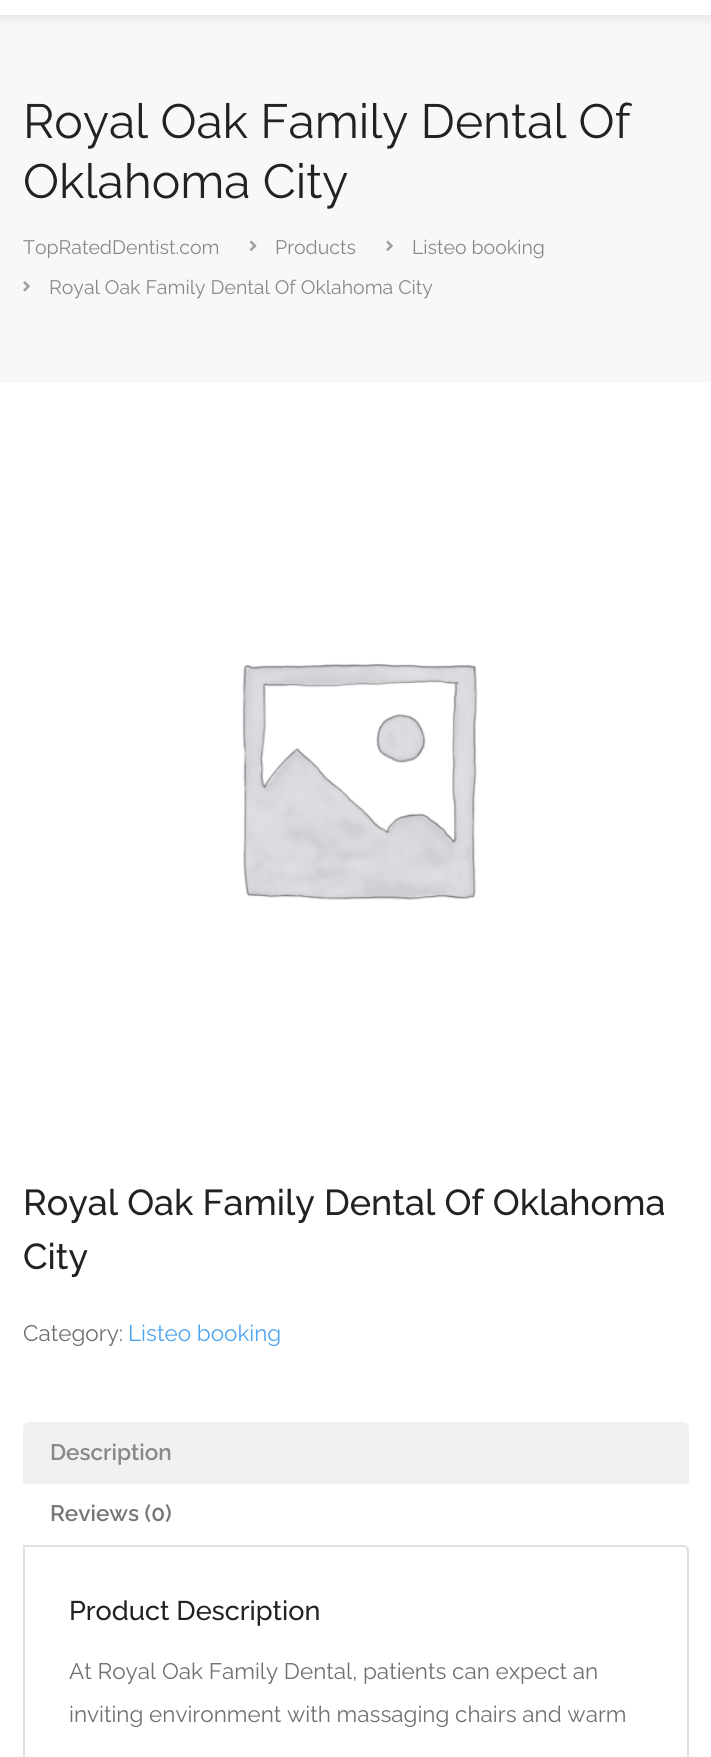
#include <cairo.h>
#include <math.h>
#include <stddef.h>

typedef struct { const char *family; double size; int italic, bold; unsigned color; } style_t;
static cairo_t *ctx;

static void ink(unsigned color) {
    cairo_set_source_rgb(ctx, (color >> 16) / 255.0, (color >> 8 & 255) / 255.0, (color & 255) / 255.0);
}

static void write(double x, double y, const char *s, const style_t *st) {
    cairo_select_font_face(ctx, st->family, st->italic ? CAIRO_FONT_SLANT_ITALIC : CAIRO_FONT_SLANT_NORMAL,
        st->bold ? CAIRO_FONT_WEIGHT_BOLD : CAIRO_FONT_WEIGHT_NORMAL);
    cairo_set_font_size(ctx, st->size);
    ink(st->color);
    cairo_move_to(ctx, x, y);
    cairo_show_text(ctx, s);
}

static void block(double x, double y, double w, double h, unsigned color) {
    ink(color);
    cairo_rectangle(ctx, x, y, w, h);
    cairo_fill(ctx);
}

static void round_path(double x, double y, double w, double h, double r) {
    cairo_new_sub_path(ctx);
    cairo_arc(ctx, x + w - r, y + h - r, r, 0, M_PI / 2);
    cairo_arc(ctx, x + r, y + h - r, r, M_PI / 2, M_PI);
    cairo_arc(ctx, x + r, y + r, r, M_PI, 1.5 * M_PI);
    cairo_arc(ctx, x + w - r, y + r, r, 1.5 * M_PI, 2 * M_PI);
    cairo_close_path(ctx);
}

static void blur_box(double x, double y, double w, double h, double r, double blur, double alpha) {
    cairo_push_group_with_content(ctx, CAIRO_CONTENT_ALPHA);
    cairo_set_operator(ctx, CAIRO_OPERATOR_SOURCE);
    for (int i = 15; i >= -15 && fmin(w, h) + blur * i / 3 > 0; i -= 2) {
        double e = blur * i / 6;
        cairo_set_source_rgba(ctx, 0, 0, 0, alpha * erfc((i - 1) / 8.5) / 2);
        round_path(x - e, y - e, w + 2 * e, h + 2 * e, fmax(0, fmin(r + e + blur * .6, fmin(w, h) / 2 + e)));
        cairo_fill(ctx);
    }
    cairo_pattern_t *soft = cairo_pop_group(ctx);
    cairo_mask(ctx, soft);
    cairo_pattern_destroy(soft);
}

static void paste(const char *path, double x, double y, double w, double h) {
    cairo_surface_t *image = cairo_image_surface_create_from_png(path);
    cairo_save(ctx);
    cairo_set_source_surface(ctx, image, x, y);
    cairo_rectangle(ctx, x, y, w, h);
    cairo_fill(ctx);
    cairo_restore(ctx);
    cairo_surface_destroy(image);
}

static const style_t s1 = {"Raleway Thin", 48, 0, 0, 0x222222};
static const style_t s2 = {"Raleway Thin", 19.5, 0, 0, 0x888888};
static const style_t s3 = {"Raleway Medium", 36, 0, 0, 0x222222};
static const style_t s4 = {"Raleway Thin", 22.5, 0, 0, 0x707070};
static const style_t s5 = {"Raleway Thin", 22.5, 0, 0, 0x4ea3ed};
static const style_t s6 = {"Raleway SemiBold", 22.5, 0, 0, 0x888888};
static const style_t s7 = {"Raleway SemiBold", 22.5, 0, 0, 0x777777};
static const style_t s8 = {"Raleway Medium", 27, 0, 0, 0x222222};

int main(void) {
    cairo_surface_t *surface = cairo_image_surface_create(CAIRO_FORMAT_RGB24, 711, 1757);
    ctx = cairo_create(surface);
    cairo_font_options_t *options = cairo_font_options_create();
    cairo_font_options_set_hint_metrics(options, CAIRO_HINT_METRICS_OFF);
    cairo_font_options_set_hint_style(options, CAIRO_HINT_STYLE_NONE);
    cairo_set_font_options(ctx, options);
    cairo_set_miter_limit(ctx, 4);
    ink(0xffffff);
    cairo_paint(ctx);
    block(0, 15, 711, 368, 0xf8f8f8);
    cairo_save(ctx);
    cairo_rectangle(ctx, 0, 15, 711, 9);
    cairo_clip(ctx);
    ink(0x000000);
    blur_box(0, -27, 711, 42, 0, 9, 0.12);
    cairo_restore(ctx);
    write(23, 138, "Royal Oak Family Dental Of", &s1);
    write(23, 198, "Oklahoma City", &s1);
    write(23, 254, "TopRatedDentist.com", &s2);
    paste("pic1.png", 249, 240, 8, 11);
    write(275, 254, "Products", &s2);
    paste("pic2.png", 386, 240, 7, 11);
    write(412, 254, "Listeo booking", &s2);
    paste("pic3.png", 23, 281, 7, 11);
    write(49, 294, "Royal Oak Family Dental Of Oklahoma City", &s2);
    paste("pic4.png", 242, 663, 236, 237);
    write(23, 1215, "Royal Oak Family Dental Of Oklahoma", &s3);
    write(23, 1269, "City", &s3);
    write(23, 1341, "Category:", &s4);
    write(128, 1341, "Listeo booking", &s5);
    ink(0xf1f1f1);
    cairo_new_path(ctx);
    cairo_move_to(ctx, 29, 1422);
    cairo_line_to(ctx, 683, 1422);
    cairo_curve_to(ctx, 686.5, 1422, 689, 1424.5, 689, 1428);
    cairo_line_to(ctx, 689, 1484);
    cairo_line_to(ctx, 23, 1484);
    cairo_line_to(ctx, 23, 1428);
    cairo_curve_to(ctx, 23, 1424.5, 25.5, 1422, 29, 1422);
    cairo_close_path(ctx);
    cairo_fill(ctx);
    write(50, 1460, "Description", &s6);
    write(50, 1521, "Reviews (0)", &s7);
    cairo_new_path(ctx);
    cairo_move_to(ctx, 24, 1546);
    cairo_line_to(ctx, 683, 1546);
    cairo_curve_to(ctx, 686, 1546, 688, 1548, 688, 1551);
    cairo_line_to(ctx, 688, 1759);
    cairo_curve_to(ctx, 688, 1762, 686, 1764, 683, 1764);
    cairo_line_to(ctx, 29, 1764);
    cairo_curve_to(ctx, 26, 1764, 24, 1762, 24, 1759);
    cairo_close_path(ctx);
    ink(0xe0e0e0);
    cairo_stroke(ctx);
    write(69, 1620, "Product Description", &s8);
    write(69, 1679, "At Royal Oak Family Dental, patients can expect an", &s4);
    write(69, 1722, "inviting environment with massaging chairs and warm", &s4);
    cairo_surface_write_to_png(surface, "screenshot.png");
    cairo_font_options_destroy(options);
    cairo_destroy(ctx);
    cairo_surface_destroy(surface);
    return 0;
}
